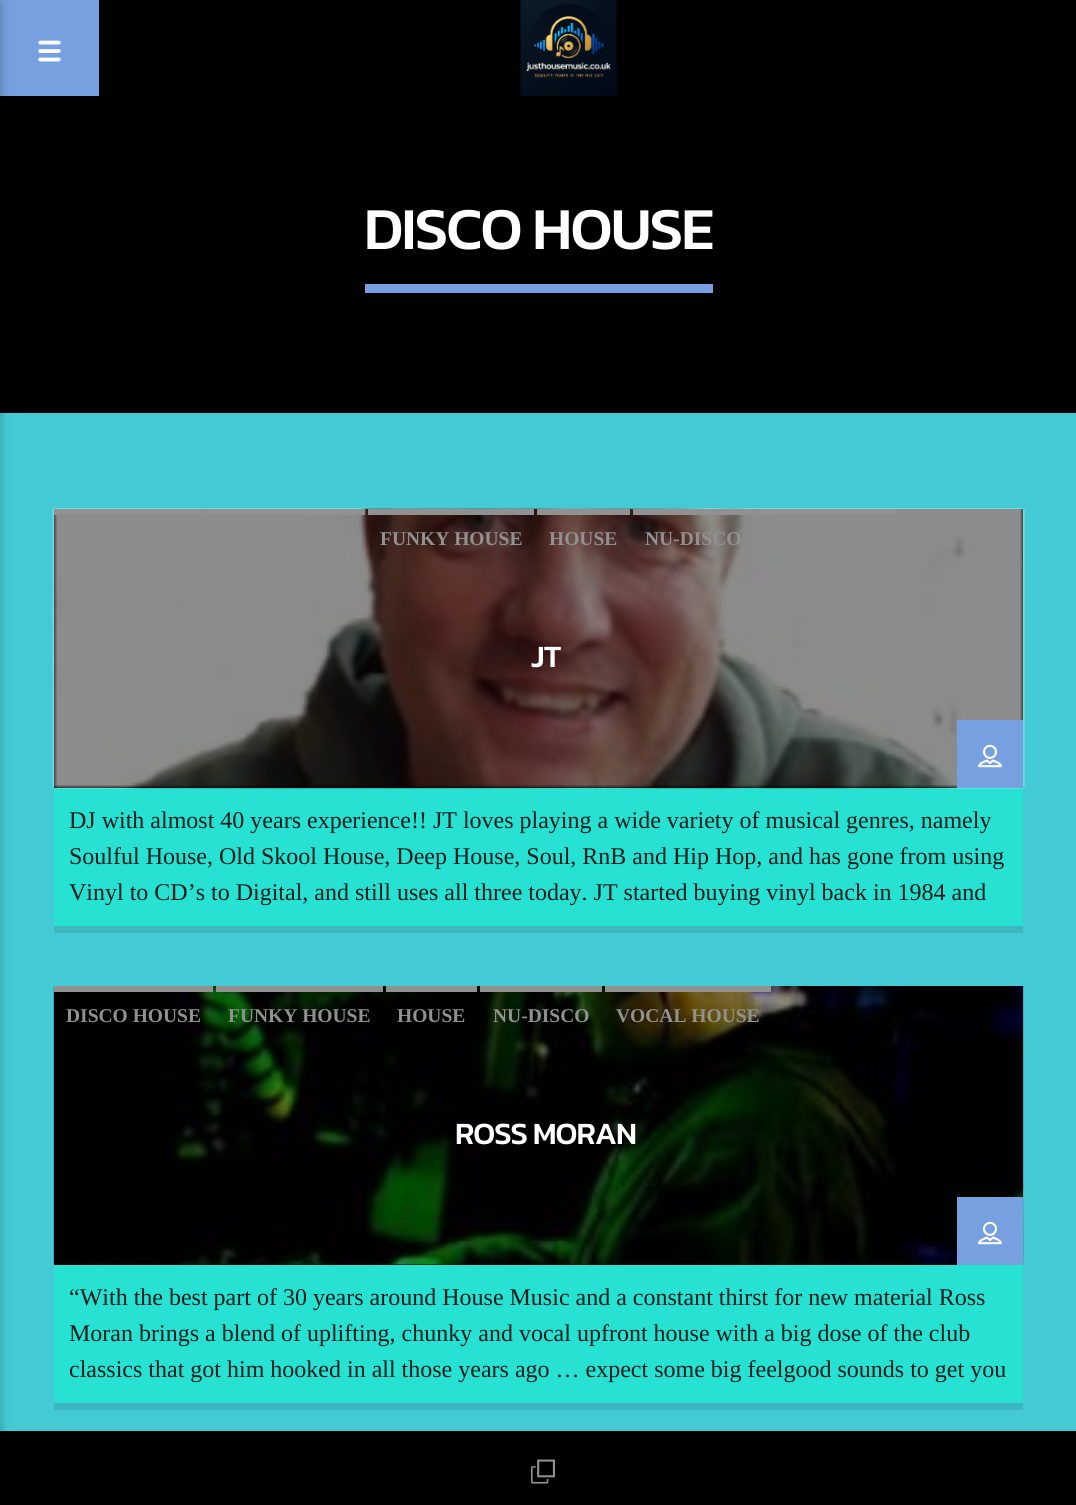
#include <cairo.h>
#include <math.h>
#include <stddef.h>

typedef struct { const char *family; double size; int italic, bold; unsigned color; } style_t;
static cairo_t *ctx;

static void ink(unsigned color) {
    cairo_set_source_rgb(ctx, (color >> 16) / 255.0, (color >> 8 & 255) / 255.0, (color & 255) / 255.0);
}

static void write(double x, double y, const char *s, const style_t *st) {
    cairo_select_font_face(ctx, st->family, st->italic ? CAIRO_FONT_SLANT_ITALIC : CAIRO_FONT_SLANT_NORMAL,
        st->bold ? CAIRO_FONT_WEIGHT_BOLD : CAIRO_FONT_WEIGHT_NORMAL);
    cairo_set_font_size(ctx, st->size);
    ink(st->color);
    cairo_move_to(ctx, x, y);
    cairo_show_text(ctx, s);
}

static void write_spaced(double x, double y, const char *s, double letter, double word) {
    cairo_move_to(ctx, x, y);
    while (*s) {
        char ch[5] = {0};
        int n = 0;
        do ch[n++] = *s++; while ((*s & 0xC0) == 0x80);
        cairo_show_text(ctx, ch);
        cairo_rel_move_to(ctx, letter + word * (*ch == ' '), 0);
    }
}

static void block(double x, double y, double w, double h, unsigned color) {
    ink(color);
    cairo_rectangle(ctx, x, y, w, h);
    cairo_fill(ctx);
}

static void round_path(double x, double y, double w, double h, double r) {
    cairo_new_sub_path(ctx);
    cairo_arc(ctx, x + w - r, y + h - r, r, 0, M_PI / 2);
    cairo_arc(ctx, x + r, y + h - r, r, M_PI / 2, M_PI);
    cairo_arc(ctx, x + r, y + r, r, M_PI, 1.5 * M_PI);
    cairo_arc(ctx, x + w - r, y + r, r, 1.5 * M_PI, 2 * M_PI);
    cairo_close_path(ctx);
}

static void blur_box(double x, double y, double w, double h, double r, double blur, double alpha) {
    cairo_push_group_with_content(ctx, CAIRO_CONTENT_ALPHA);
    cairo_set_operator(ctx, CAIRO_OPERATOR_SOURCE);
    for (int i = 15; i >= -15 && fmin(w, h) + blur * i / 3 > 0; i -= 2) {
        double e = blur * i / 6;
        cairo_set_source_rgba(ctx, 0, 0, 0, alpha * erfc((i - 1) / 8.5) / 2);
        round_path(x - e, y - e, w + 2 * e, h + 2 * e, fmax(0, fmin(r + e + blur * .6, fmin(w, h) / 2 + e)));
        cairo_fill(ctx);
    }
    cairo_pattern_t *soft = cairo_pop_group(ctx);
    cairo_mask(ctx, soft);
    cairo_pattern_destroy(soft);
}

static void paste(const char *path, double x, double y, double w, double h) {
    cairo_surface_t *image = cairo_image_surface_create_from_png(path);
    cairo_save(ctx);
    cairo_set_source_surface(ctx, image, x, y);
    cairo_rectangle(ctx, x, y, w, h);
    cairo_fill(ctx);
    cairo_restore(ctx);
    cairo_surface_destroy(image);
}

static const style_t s1 = {"Liberation Serif", 19.5, 0, 1, 0x919191};
static const style_t s2 = {"Liberation Serif", 24, 0, 0, 0x051d1b};

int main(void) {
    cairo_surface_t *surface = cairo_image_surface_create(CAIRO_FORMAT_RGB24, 1076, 1505);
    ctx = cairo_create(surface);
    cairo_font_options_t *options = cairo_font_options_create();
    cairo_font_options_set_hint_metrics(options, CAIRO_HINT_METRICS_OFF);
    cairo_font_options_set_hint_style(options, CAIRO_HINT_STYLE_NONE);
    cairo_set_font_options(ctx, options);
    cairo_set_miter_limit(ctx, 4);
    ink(0x43cad4);
    cairo_paint(ctx);
    block(99, 0, 977, 96, 0x000000);
    block(0, 0, 99, 96, 0x76a0df);
    paste("pic1.png", 38, 40, 23, 22);
    paste("pic2.png", 520, 0, 97, 96);
    block(0, 96, 1076, 317, 0x000000);
    block(0, 1431, 1076, 74, 0x000000);
    ink(0x000000);
    blur_box(-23, 3, 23, 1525, 0, 7.5, 0.12);
    blur_box(-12, 3, 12, 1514, 0, 4, 0.16);
    block(365, 284, 348, 9, 0x76a0df);
    cairo_select_font_face(ctx, "Kanit Medium", CAIRO_FONT_SLANT_NORMAL, CAIRO_FONT_WEIGHT_NORMAL);
    cairo_set_font_size(ctx, 60);
    ink(0xffffff);
    write_spaced(364, 249, "DISCO HOUSE", -1.75, 0);
    block(54, 509, 969, 279, 0x000000);
    block(54, 788, 969, 138, 0x27e1d2);
    paste("pic3.png", 52, 508, 973, 281);
    block(54, 509, 149, 6, 0x919191);
    block(206, 509, 159, 6, 0x919191);
    block(756, 509, 141, 6, 0x919191);
    block(368, 509, 166, 6, 0x919191);
    write(380, 545, "FUNKY HOUSE", &s1);
    block(537, 509, 93, 6, 0x919191);
    write(549, 545, "HOUSE", &s1);
    block(633, 509, 120, 6, 0x919191);
    write(645, 545, "NU-DISCO", &s1);
    cairo_select_font_face(ctx, "Kanit Medium", CAIRO_FONT_SLANT_NORMAL, CAIRO_FONT_WEIGHT_NORMAL);
    cairo_set_font_size(ctx, 31.25);
    ink(0xffffff);
    write_spaced(531, 667, "JT", -1, 0);
    block(957, 720, 66, 68, 0x76a0df);
    paste("pic4.png", 978, 744, 24, 24);
    block(54, 926, 969, 7, 0x3cb6bf);
    write(69, 828, "DJ with almost 40 years experience!! JT loves playing a wide variety of musical genres, namely", &s2);
    write(69, 864, "Soulful House, Old Skool House, Deep House, Soul, RnB and Hip Hop, and has gone from using", &s2);
    write(69, 900, "Vinyl to CD’s to Digital, and still uses all three today. JT started buying vinyl back in 1984 and", &s2);
    block(54, 986, 969, 279, 0x000000);
    paste("pic5.png", 53, 986, 971, 279);
    block(54, 986, 159, 6, 0x919191);
    write(66, 1022, "DISCO HOUSE", &s1);
    block(216, 986, 167, 6, 0x919191);
    write(228, 1022, "FUNKY HOUSE", &s1);
    block(386, 986, 91, 6, 0x919191);
    write(397, 1022, "HOUSE", &s1);
    block(480, 986, 122, 6, 0x919191);
    write(493, 1022, "NU-DISCO", &s1);
    block(605, 986, 166, 6, 0x919191);
    write(616, 1022, "VOCAL HOUSE", &s1);
    cairo_select_font_face(ctx, "Kanit Medium", CAIRO_FONT_SLANT_NORMAL, CAIRO_FONT_WEIGHT_NORMAL);
    cairo_set_font_size(ctx, 31.25);
    ink(0xffffff);
    write_spaced(455, 1144, "ROSS MORAN", -1, 0);
    block(957, 1197, 66, 68, 0x76a0df);
    paste("pic4.png", 978, 1221, 24, 24);
    block(54, 1403, 969, 7, 0x3cb6bf);
    block(54, 1265, 969, 138, 0x27e1d2);
    write(69, 1305, "“With the best part of 30 years around House Music and a constant thirst for new material Ross", &s2);
    write(69, 1341, "Moran brings a blend of uplifting, chunky and vocal upfront house with a big dose of the club", &s2);
    write(69, 1377, "classics that got him hooked in all those years ago … expect some big feelgood sounds to get you", &s2);
    paste("pic6.png", 531, 1459, 24, 25);
    cairo_surface_write_to_png(surface, "screenshot.png");
    cairo_font_options_destroy(options);
    cairo_destroy(ctx);
    cairo_surface_destroy(surface);
    return 0;
}
